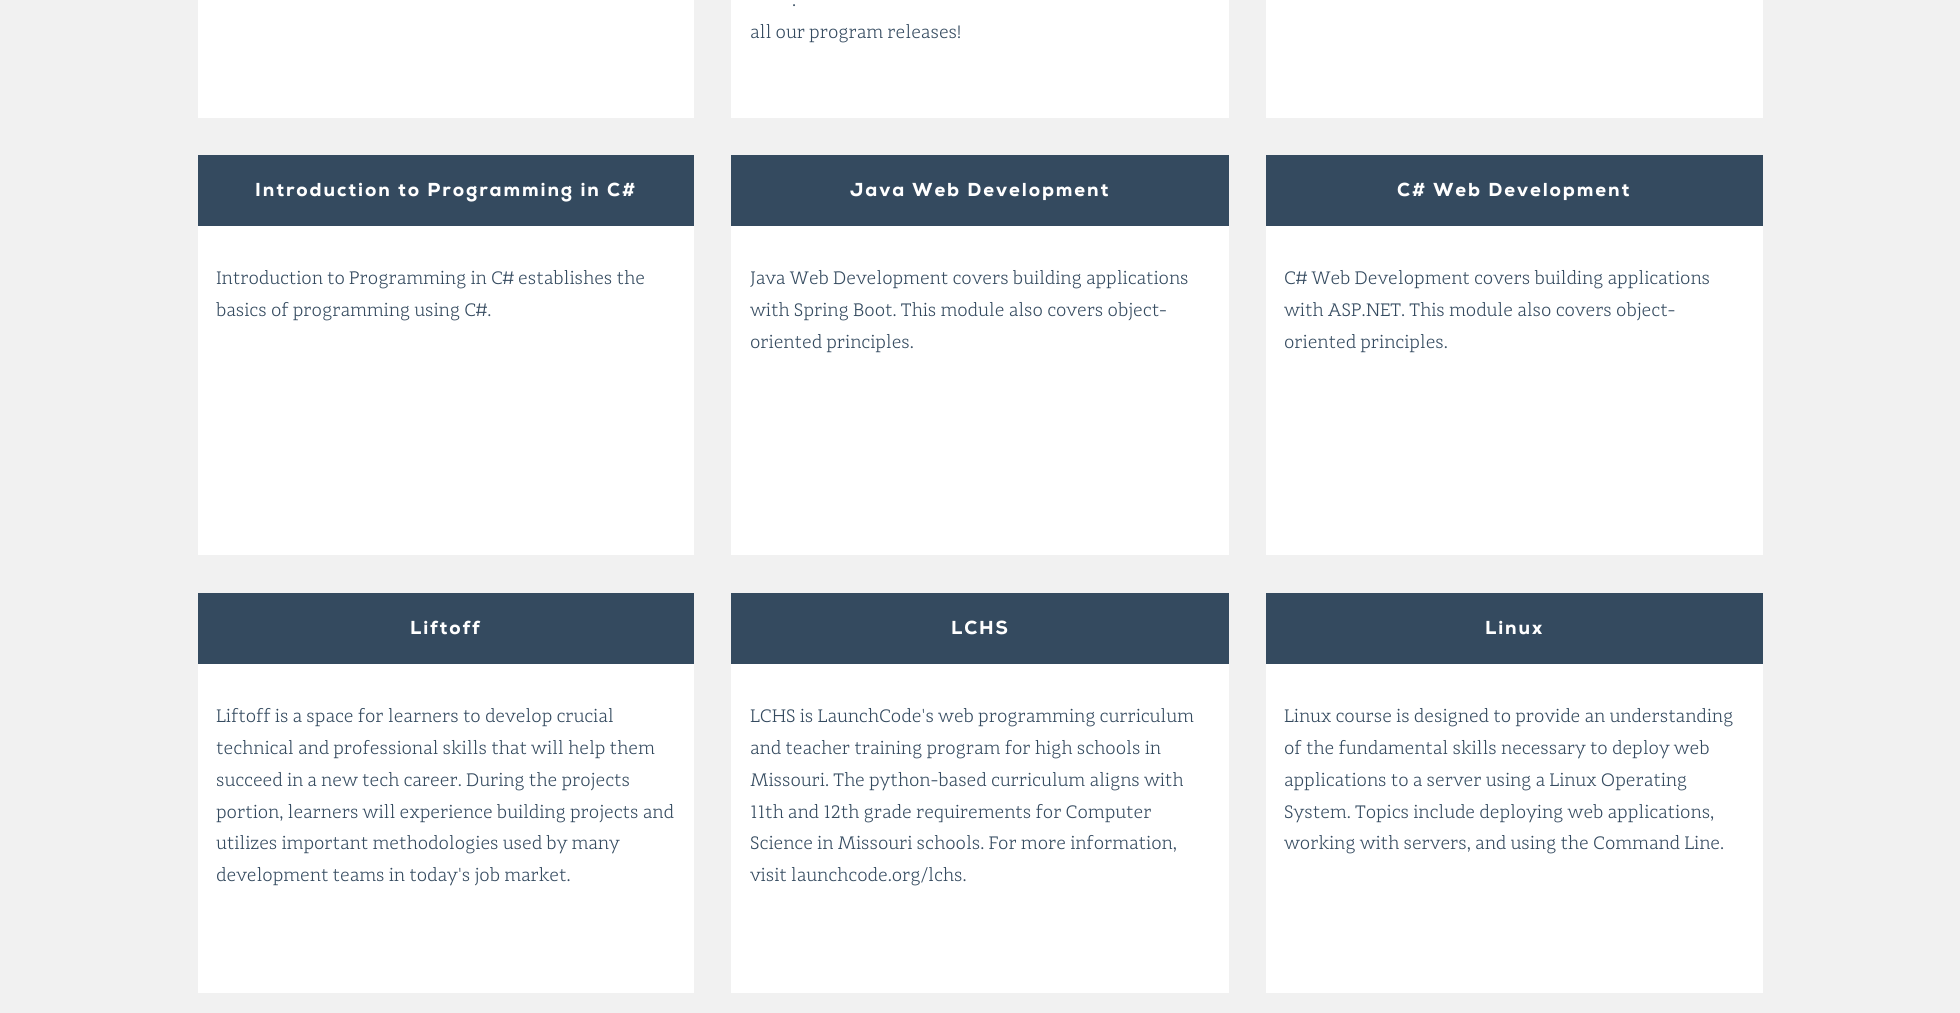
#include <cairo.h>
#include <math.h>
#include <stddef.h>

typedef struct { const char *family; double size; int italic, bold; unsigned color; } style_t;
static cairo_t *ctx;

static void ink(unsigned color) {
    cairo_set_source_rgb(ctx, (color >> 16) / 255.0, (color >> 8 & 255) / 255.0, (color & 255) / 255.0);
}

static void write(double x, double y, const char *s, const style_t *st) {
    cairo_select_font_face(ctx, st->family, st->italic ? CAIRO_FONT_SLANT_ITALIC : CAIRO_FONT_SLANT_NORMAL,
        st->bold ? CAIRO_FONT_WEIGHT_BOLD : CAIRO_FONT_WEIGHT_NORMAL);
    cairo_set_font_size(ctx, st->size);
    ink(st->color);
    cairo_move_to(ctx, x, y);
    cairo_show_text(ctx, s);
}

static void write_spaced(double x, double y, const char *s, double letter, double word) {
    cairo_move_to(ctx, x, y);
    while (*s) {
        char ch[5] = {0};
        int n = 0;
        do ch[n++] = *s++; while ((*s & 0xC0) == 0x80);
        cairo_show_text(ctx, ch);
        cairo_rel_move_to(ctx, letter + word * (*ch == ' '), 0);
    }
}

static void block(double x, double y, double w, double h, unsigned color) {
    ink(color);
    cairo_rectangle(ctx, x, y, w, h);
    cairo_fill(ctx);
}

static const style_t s1 = {"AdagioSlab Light", 18.75, 0, 0, 0x344a5f};

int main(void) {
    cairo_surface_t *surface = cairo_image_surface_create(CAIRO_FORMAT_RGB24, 1960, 1013);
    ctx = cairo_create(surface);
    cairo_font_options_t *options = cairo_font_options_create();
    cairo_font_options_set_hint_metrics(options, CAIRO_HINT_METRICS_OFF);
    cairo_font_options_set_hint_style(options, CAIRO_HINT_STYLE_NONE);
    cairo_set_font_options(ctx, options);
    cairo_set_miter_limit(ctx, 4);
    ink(0xf1f1f1);
    cairo_paint(ctx);
    block(198, 0, 496, 118, 0xffffff);
    block(731, 0, 498, 118, 0xffffff);
    write(792, 6, ".", &s1);
    write(750, 38, "all our program releases!", &s1);
    block(1266, 0, 497, 118, 0xffffff);
    block(198, 226, 496, 329, 0xffffff);
    block(198, 155, 496, 71, 0x344a5f);
    cairo_select_font_face(ctx, "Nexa", CAIRO_FONT_SLANT_NORMAL, CAIRO_FONT_WEIGHT_NORMAL);
    ink(0xffffff);
    write_spaced(255, 196, "Introduction to Programming in C#", 1.9, 0);
    write(216, 284, "Introduction to Programming in C# establishes the", &s1);
    write(216, 316, "basics of programming using C#.", &s1);
    block(731, 226, 498, 329, 0xffffff);
    block(731, 155, 498, 71, 0x344a5f);
    cairo_select_font_face(ctx, "Nexa", CAIRO_FONT_SLANT_NORMAL, CAIRO_FONT_WEIGHT_NORMAL);
    ink(0xffffff);
    write_spaced(850, 196, "Java Web Development", 1.9, 0);
    write(750, 284, "Java Web Development covers building applications", &s1);
    write(750, 316, "with Spring Boot. This module also covers object-", &s1);
    write(750, 348, "oriented principles.", &s1);
    block(1266, 226, 497, 329, 0xffffff);
    block(1266, 155, 497, 71, 0x344a5f);
    cairo_select_font_face(ctx, "Nexa", CAIRO_FONT_SLANT_NORMAL, CAIRO_FONT_WEIGHT_NORMAL);
    ink(0xffffff);
    write_spaced(1397, 196, "C# Web Development", 1.9, 0);
    write(1284, 284, "C# Web Development covers building applications", &s1);
    write(1284, 316, "with ASP.NET. This module also covers object-", &s1);
    write(1284, 348, "oriented principles.", &s1);
    block(198, 664, 496, 329, 0xffffff);
    block(198, 593, 496, 71, 0x344a5f);
    cairo_select_font_face(ctx, "Nexa", CAIRO_FONT_SLANT_NORMAL, CAIRO_FONT_WEIGHT_NORMAL);
    ink(0xffffff);
    write_spaced(410, 634, "Liftoff", 1.9, 0);
    write(216, 722, "Liftoff is a space for learners to develop crucial", &s1);
    write(216, 754, "technical and professional skills that will help them", &s1);
    write(216, 786, "succeed in a new tech career. During the projects", &s1);
    write(216, 818, "portion, learners will experience building projects and", &s1);
    write(216, 849, "utilizes important methodologies used by many", &s1);
    write(216, 881, "development teams in today's job market.", &s1);
    block(731, 664, 498, 329, 0xffffff);
    block(731, 593, 498, 71, 0x344a5f);
    cairo_select_font_face(ctx, "Nexa", CAIRO_FONT_SLANT_NORMAL, CAIRO_FONT_WEIGHT_NORMAL);
    ink(0xffffff);
    write_spaced(951, 634, "LCHS", 1.9, 0);
    write(750, 722, "LCHS is LaunchCode's web programming curriculum", &s1);
    write(750, 754, "and teacher training program for high schools in", &s1);
    write(750, 786, "Missouri. The python-based curriculum aligns with", &s1);
    write(750, 818, "11th and 12th grade requirements for Computer", &s1);
    write(750, 849, "Science in Missouri schools. For more information,", &s1);
    write(750, 881, "visit launchcode.org/lchs.", &s1);
    block(1266, 664, 497, 329, 0xffffff);
    block(1266, 593, 497, 71, 0x344a5f);
    cairo_select_font_face(ctx, "Nexa", CAIRO_FONT_SLANT_NORMAL, CAIRO_FONT_WEIGHT_NORMAL);
    ink(0xffffff);
    write_spaced(1485, 634, "Linux", 1.9, 0);
    write(1284, 722, "Linux course is designed to provide an understanding", &s1);
    write(1284, 754, "of the fundamental skills necessary to deploy web", &s1);
    write(1284, 786, "applications to a server using a Linux Operating", &s1);
    write(1284, 818, "System. Topics include deploying web applications,", &s1);
    write(1284, 849, "working with servers, and using the Command Line.", &s1);
    cairo_surface_write_to_png(surface, "screenshot.png");
    cairo_font_options_destroy(options);
    cairo_destroy(ctx);
    cairo_surface_destroy(surface);
    return 0;
}
